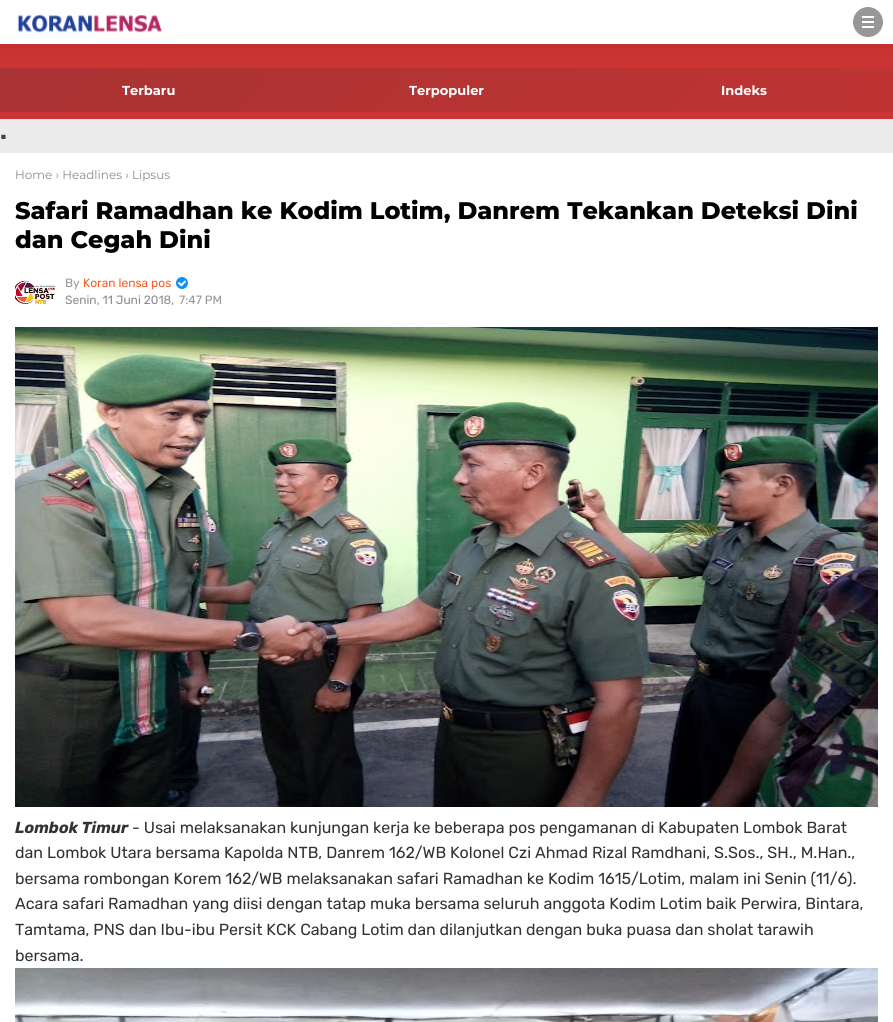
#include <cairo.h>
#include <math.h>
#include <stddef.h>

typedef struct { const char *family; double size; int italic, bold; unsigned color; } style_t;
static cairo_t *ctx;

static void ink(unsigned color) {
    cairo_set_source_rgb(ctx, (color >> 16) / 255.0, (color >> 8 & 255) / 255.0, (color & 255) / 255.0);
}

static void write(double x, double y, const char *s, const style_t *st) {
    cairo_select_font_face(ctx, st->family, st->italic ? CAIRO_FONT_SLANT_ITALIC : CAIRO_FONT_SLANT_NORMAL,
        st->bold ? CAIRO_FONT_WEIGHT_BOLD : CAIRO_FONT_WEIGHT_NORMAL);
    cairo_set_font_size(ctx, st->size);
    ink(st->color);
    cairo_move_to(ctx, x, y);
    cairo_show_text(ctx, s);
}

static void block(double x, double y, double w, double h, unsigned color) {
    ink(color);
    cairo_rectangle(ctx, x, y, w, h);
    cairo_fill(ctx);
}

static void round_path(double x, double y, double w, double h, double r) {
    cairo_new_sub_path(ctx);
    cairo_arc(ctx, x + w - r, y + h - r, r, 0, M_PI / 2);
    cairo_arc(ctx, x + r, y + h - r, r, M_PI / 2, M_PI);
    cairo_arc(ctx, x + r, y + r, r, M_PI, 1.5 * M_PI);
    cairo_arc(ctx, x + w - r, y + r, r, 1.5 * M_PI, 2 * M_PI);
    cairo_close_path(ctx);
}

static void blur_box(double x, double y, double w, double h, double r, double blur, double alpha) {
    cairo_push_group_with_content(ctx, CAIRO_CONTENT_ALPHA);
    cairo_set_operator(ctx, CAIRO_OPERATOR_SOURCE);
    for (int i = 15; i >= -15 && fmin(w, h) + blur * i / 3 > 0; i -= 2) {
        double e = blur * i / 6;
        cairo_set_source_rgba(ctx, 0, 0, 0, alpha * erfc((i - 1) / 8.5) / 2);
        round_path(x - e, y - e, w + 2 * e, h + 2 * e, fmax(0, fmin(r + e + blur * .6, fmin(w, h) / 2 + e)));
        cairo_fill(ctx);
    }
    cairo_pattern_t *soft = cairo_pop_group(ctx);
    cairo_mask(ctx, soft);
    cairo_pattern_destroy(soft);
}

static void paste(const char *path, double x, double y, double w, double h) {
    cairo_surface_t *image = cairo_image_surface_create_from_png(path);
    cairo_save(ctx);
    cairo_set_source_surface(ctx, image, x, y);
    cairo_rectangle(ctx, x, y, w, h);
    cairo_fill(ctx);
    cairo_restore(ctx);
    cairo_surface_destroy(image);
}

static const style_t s1 = {"Montserrat", 13, 0, 1, 0xffffff};
static const style_t s2 = {"Rubik", 24, 0, 1, 0x444444};
static const style_t s3 = {"Montserrat", 12, 0, 0, 0x8c8c8c};
static const style_t s4 = {"Montserrat ExtraBold", 24, 0, 0, 0x000000};
static const style_t s5 = {"Rubik", 12, 0, 0, 0x959595};
static const style_t s6 = {"Rubik", 12, 0, 0, 0xff5722};
static const style_t s7 = {"Rubik", 12, 0, 0, 0x8c8c8c};
static const style_t s8 = {"Rubik", 16, 1, 1, 0x323233};
static const style_t s9 = {"Rubik", 16, 0, 0, 0x323233};

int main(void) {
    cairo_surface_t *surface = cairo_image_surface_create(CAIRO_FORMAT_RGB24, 893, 1022);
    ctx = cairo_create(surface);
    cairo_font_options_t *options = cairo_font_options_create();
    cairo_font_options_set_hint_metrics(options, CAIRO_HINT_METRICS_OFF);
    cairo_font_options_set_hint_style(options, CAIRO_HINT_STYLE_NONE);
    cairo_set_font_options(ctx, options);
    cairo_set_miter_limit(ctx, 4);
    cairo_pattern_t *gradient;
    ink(0xececec);
    cairo_paint(ctx);
    block(0, 44, 893, 75, 0xcc3333);
    ink(0x000000);
    blur_box(0, 0, 893, 44, 0, 7.5, 0.1);
    block(0, 0, 893, 44, 0xffffff);
    paste("pic1.png", 17, 15, 145, 18);
    ink(0x979797);
    cairo_arc(ctx, 868, 22, 15, 0, 2 * M_PI);
    cairo_fill(ctx);
    block(862, 16, 12, 2, 0xffffff);
    block(862, 21, 12, 2, 0xffffff);
    block(862, 26, 12, 2, 0xffffff);
    gradient = cairo_pattern_create_linear(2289, 834, 569, -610);
    cairo_pattern_add_color_stop_rgba(gradient, 0, 0.667, 0.2, 0.2, 1);
    cairo_pattern_add_color_stop_rgba(gradient, 0.5, 0.8, 0.2, 0.2, 1);
    cairo_pattern_add_color_stop_rgba(gradient, 1, 0.667, 0.2, 0.2, 1);
    cairo_set_source(ctx, gradient);
    cairo_pattern_destroy(gradient);
    cairo_rectangle(ctx, 0, 68, 893, 44);
    cairo_fill(ctx);
    write(122, 95, "Terbaru", &s1);
    write(409, 95, "Terpopuler", &s1);
    write(721, 95, "Indeks", &s1);
    write(0, 139, ".", &s2);
    block(0, 153, 893, 869, 0xffffff);
    write(15, 179, "Home › Headlines › Lipsus", &s3);
    write(15, 219, "Safari Ramadhan ke Kodim Lotim, Danrem Tekankan Deteksi Dini", &s4);
    write(15, 248, "dan Cegah Dini", &s4);
    paste("pic2.png", 15, 280, 40, 25);
    write(65, 287, "By", &s5);
    write(83, 287, "Koran lensa pos", &s6);
    paste("pic3.png", 176, 277, 12, 12);
    write(65, 304, "Senin, 11 Juni 2018,", &s7);
    write(179, 304, "7:47 PM", &s5);
    paste("pic4.png", 15, 327, 863, 480);
    write(15, 833, "Lombok Timur", &s8);
    write(132, 833, "- Usai melaksanakan kunjungan kerja ke beberapa pos pengamanan di Kabupaten Lombok Barat", &s9);
    write(15, 858, "dan Lombok Utara bersama Kapolda NTB, Danrem 162/WB Kolonel Czi Ahmad Rizal Ramdhani, S.Sos., SH., M.Han.,", &s9);
    write(15, 884, "bersama rombongan Korem 162/WB melaksanakan safari Ramadhan ke Kodim 1615/Lotim, malam ini Senin (11/6).", &s9);
    write(15, 909, "Acara safari Ramadhan yang diisi dengan tatap muka bersama seluruh anggota Kodim Lotim baik Perwira, Bintara,", &s9);
    write(15, 935, "Tamtama, PNS dan Ibu-ibu Persit KCK Cabang Lotim dan dilanjutkan dengan buka puasa dan sholat tarawih", &s9);
    write(15, 961, "bersama.", &s9);
    paste("pic5.png", 15, 968, 863, 54);
    cairo_surface_write_to_png(surface, "screenshot.png");
    cairo_font_options_destroy(options);
    cairo_destroy(ctx);
    cairo_surface_destroy(surface);
    return 0;
}
